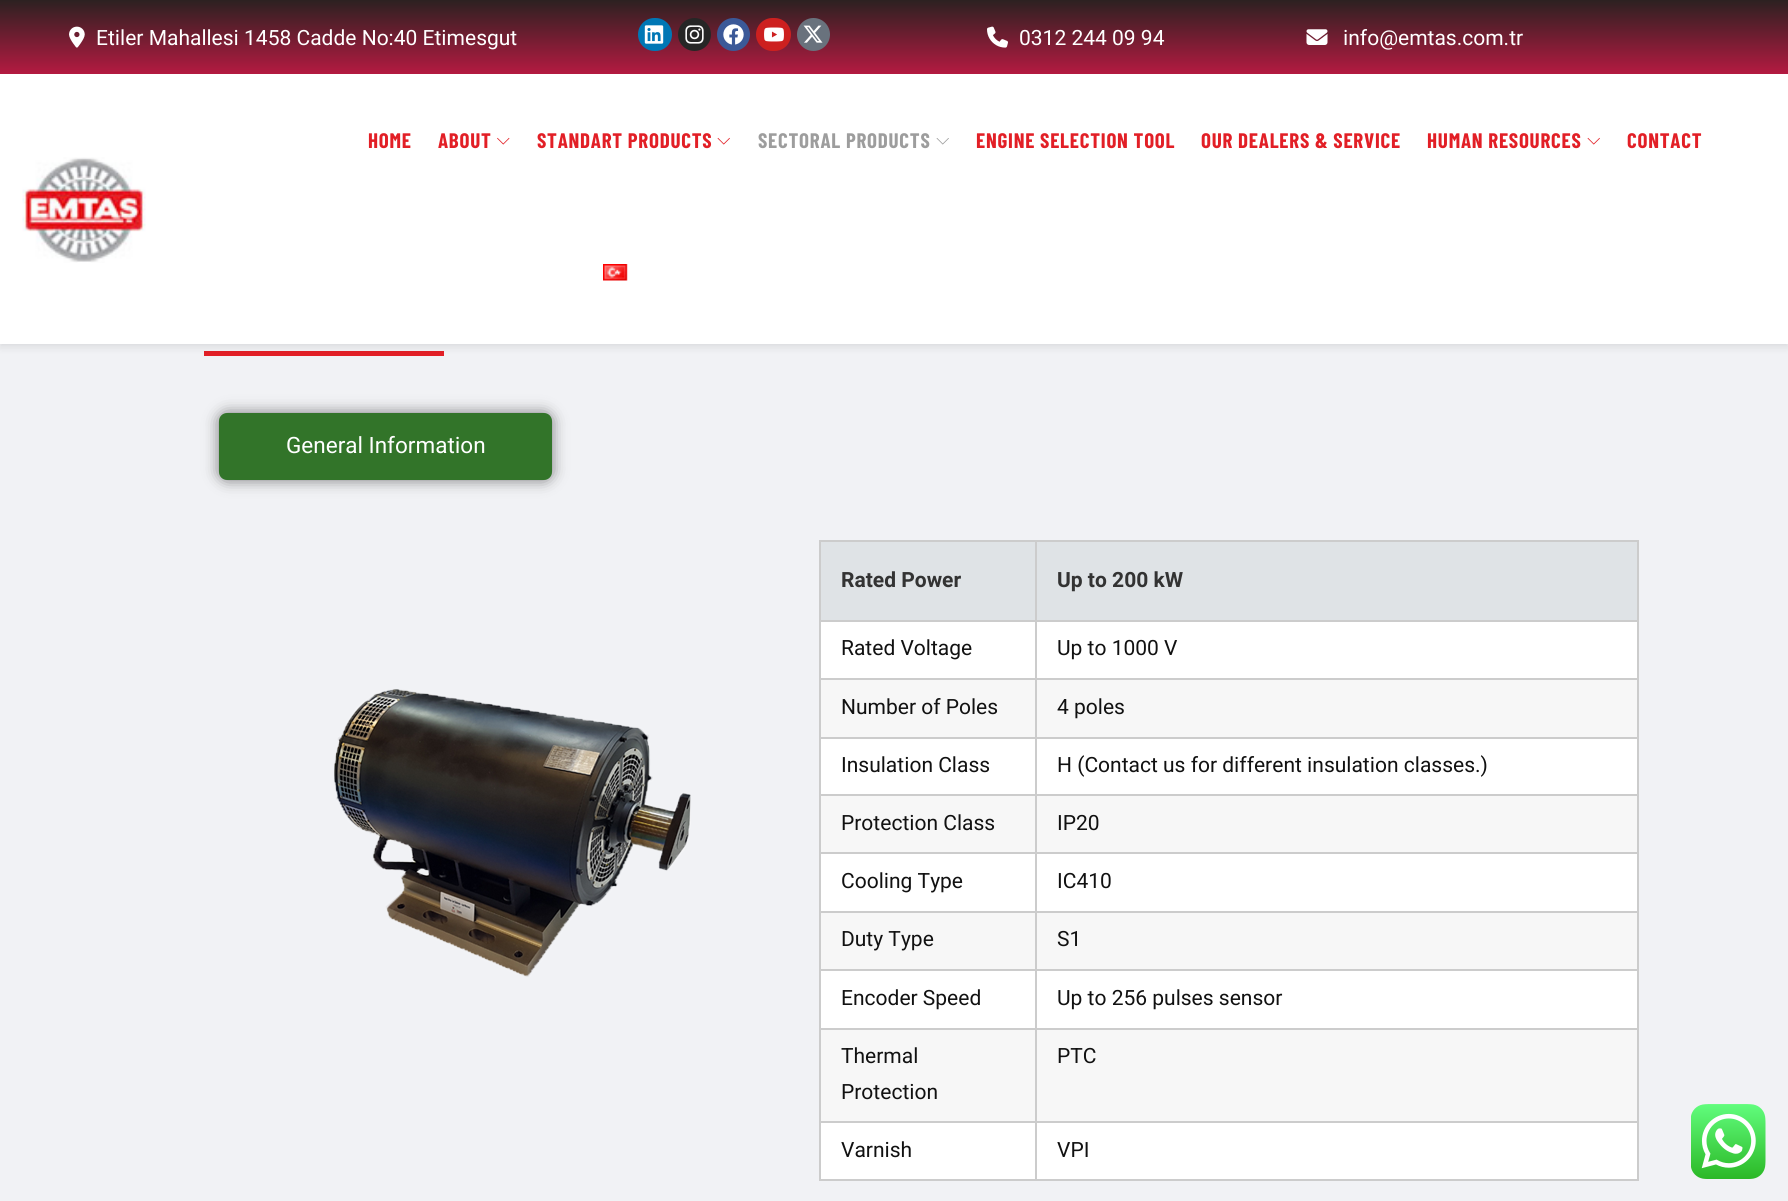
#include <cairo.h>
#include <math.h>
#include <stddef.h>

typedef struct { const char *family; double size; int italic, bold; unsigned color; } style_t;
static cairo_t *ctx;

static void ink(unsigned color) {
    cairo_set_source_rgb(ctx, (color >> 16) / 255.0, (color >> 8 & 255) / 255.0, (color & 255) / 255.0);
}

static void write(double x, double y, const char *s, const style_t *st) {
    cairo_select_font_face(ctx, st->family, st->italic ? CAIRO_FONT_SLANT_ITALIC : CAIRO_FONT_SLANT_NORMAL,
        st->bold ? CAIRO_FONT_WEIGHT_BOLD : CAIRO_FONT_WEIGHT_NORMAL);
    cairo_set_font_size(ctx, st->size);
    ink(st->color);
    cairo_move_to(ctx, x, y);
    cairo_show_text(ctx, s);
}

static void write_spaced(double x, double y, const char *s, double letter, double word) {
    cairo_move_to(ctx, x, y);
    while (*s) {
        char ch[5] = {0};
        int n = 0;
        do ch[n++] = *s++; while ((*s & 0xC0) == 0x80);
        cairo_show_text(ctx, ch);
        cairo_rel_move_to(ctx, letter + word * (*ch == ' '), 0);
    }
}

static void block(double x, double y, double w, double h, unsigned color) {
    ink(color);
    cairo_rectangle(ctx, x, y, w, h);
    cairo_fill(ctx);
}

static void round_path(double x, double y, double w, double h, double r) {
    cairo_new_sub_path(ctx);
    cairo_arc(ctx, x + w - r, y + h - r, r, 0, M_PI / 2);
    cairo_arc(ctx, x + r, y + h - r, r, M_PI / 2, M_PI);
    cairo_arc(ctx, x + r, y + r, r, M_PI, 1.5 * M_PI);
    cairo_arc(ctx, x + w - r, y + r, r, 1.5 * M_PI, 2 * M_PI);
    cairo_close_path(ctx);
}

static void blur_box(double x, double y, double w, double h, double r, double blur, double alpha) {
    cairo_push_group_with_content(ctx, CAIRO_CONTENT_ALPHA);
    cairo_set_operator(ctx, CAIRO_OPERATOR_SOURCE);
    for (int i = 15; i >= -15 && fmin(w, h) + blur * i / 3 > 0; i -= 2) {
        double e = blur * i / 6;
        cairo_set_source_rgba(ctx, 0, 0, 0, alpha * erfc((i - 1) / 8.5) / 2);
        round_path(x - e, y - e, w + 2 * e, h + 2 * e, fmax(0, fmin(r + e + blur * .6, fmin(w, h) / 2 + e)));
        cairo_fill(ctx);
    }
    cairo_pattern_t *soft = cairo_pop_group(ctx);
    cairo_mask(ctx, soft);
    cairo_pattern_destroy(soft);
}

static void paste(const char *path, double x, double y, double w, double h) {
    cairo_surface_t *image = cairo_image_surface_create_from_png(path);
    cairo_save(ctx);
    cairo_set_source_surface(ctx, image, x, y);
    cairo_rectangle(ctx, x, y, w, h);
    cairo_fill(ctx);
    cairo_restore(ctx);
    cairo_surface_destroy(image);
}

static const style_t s1 = {"Heebo", 21, 0, 0, 0xffffff};
static const style_t s2 = {"Heebo", 22.5, 0, 0, 0xffffff};
static const style_t s3 = {"Heebo", 21, 0, 1, 0x333333};
static const style_t s4 = {"Heebo", 21, 0, 0, 0x111111};

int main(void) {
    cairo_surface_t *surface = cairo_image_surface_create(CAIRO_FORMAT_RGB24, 1788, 1201);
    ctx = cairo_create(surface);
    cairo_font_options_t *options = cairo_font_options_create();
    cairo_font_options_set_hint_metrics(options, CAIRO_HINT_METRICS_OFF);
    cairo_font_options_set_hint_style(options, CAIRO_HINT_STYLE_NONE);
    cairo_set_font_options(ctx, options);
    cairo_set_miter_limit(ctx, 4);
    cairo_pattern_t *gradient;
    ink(0xf1f2f5);
    cairo_paint(ctx);
    block(204, 351, 240, 5, 0xe21f26);
    ink(0x000000);
    blur_box(0, 3, 1788, 344, 0, 4, 0.1);
    block(0, 74, 1788, 270, 0xffffff);
    gradient = cairo_pattern_create_linear(894, 0, 894, 74);
    cairo_pattern_add_color_stop_rgba(gradient, 0, 0.173, 0.129, 0.129, 1);
    cairo_pattern_add_color_stop_rgba(gradient, 1, 0.706, 0.102, 0.255, 1);
    cairo_set_source(ctx, gradient);
    cairo_pattern_destroy(gradient);
    cairo_rectangle(ctx, 0, 0, 1788, 74);
    cairo_fill(ctx);
    paste("pic1.png", 69, 26, 16, 22);
    write(96, 45, "Etiler Mahallesi 1458 Cadde No:40 Etimesgut", &s1);
    ink(0x0077b5);
    round_path(638, 18, 34, 33, 16.5);
    cairo_fill(ctx);
    paste("pic2.png", 644, 25, 20, 19);
    ink(0x262626);
    cairo_arc(ctx, 694.5, 34.5, 16.5, 0, 2 * M_PI);
    cairo_fill(ctx);
    paste("pic3.png", 685, 25, 19, 19);
    ink(0x3b5998);
    cairo_arc(ctx, 733.5, 34.5, 16.5, 0, 2 * M_PI);
    cairo_fill(ctx);
    paste("pic4.png", 723, 24, 21, 21);
    ink(0xcd201f);
    round_path(756, 18, 35, 33, 16.5);
    cairo_fill(ctx);
    paste("pic5.png", 764, 27, 20, 15);
    ink(0x69727d);
    cairo_arc(ctx, 813.5, 34.5, 16.5, 0, 2 * M_PI);
    cairo_fill(ctx);
    paste("pic6.png", 803, 25, 20, 18);
    paste("pic7.png", 987, 26, 21, 22);
    write(1019, 45, "0312 244 09 94", &s1);
    paste("pic8.png", 1306, 29, 22, 16);
    write(1343, 45, "info@emtas.com.tr", &s1);
    cairo_select_font_face(ctx, "Barlow Condensed", CAIRO_FONT_SLANT_NORMAL, CAIRO_FONT_WEIGHT_BOLD);
    ink(0xe21f26);
    write_spaced(368, 148, "HOME", 0.75, 0);
    write_spaced(438, 148, "ABOUT", 0.75, 0);
    paste("pic9.png", 497, 137, 13, 8);
    write_spaced(537, 148, "STANDART PRODUCTS", 0.75, 0);
    paste("pic10.png", 717, 137, 13, 8);
    ink(0x9d9d9d);
    write_spaced(758, 148, "SECTORAL PRODUCTS", 0.75, 0);
    paste("pic11.png", 936, 138, 13, 7);
    ink(0xe21f26);
    write_spaced(976, 148, "ENGINE SELECTION TOOL", 0.75, 0);
    write_spaced(1201, 148, "OUR DEALERS & SERVICE", 0.75, 0);
    write_spaced(1427, 148, "HUMAN RESOURCES", 0.75, 0);
    paste("pic10.png", 1587, 137, 13, 8);
    write_spaced(1627, 148, "CONTACT", 0.75, 0);
    paste("pic12.png", 603, 264, 25, 17);
    paste("pic13.png", 22, 157, 124, 106);
    ink(0x000000);
    blur_box(219, 413, 333, 67, 8, 7.5, 0.5);
    ink(0x327429);
    round_path(219, 413, 333, 67, 8);
    cairo_fill(ctx);
    write(286, 453, "General Information", &s2);
    paste("pic14.png", 334, 689, 357, 288);
    block(819, 540, 819, 2, 0xcccccc);
    block(1637, 540, 2, 641, 0xcccccc);
    block(819, 1179, 819, 2, 0xcccccc);
    block(819, 540, 2, 641, 0xcccccc);
    block(821, 542, 214, 78, 0xdfe3e6);
    write(841, 587, "Rated Power", &s3);
    block(1037, 542, 600, 78, 0xdfe3e6);
    block(1035, 620, 603, 2, 0xcccccc);
    block(1035, 678, 603, 2, 0xcccccc);
    block(1035, 737, 603, 2, 0xcccccc);
    block(1035, 794, 603, 2, 0xcccccc);
    block(1035, 852, 603, 2, 0xcccccc);
    block(1035, 911, 603, 2, 0xcccccc);
    block(1035, 969, 603, 2, 0xcccccc);
    block(1035, 1028, 603, 2, 0xcccccc);
    block(1035, 1121, 603, 2, 0xcccccc);
    block(1035, 1121, 2, 60, 0xcccccc);
    block(819, 1121, 218, 2, 0xcccccc);
    block(1035, 1028, 2, 94, 0xcccccc);
    block(819, 1028, 218, 2, 0xcccccc);
    block(1035, 969, 2, 60, 0xcccccc);
    block(819, 969, 218, 2, 0xcccccc);
    block(1035, 911, 2, 60, 0xcccccc);
    block(819, 911, 218, 2, 0xcccccc);
    block(1035, 852, 2, 60, 0xcccccc);
    block(819, 852, 218, 2, 0xcccccc);
    block(1035, 794, 2, 60, 0xcccccc);
    block(819, 794, 218, 2, 0xcccccc);
    block(1035, 737, 2, 58, 0xcccccc);
    block(819, 737, 218, 2, 0xcccccc);
    block(1035, 678, 2, 60, 0xcccccc);
    block(819, 678, 218, 2, 0xcccccc);
    block(1035, 620, 2, 60, 0xcccccc);
    block(819, 620, 218, 2, 0xcccccc);
    block(1035, 540, 2, 81, 0xcccccc);
    write(1057, 587, "Up to 200 kW", &s3);
    block(821, 622, 214, 56, 0xffffff);
    write(841, 655, "Rated Voltage", &s4);
    block(1037, 622, 600, 56, 0xffffff);
    write(1057, 655, "Up to 1000 V", &s4);
    block(821, 680, 214, 57, 0xf7f7f7);
    write(841, 714, "Number of Poles", &s4);
    block(1037, 680, 600, 57, 0xf7f7f7);
    write(1057, 714, "4 poles", &s4);
    block(821, 739, 214, 55, 0xffffff);
    write(841, 772, "Insulation Class", &s4);
    block(1037, 739, 600, 55, 0xffffff);
    write(1057, 772, "H (Contact us for different insulation classes.)", &s4);
    block(821, 796, 214, 56, 0xf7f7f7);
    write(841, 830, "Protection Class", &s4);
    block(1037, 796, 600, 56, 0xf7f7f7);
    write(1057, 830, "IP20", &s4);
    block(821, 854, 214, 57, 0xffffff);
    write(841, 888, "Cooling Type", &s4);
    block(1037, 854, 600, 57, 0xffffff);
    write(1057, 888, "IC410", &s4);
    block(821, 913, 214, 56, 0xf7f7f7);
    write(841, 946, "Duty Type", &s4);
    block(1037, 913, 600, 56, 0xf7f7f7);
    write(1057, 946, "S1", &s4);
    block(821, 971, 214, 57, 0xffffff);
    write(841, 1005, "Encoder Speed", &s4);
    block(1037, 971, 600, 57, 0xffffff);
    write(1057, 1005, "Up to 256 pulses sensor", &s4);
    block(821, 1030, 214, 91, 0xf7f7f7);
    write(841, 1063, "Thermal", &s4);
    write(841, 1099, "Protection", &s4);
    block(1037, 1030, 600, 91, 0xf7f7f7);
    write(1057, 1063, "PTC", &s4);
    block(821, 1123, 214, 56, 0xffffff);
    write(841, 1157, "Varnish", &s4);
    block(1037, 1123, 600, 56, 0xffffff);
    write(1057, 1157, "VPI", &s4);
    paste("pic15.png", 1691, 1104, 75, 75);
    cairo_surface_write_to_png(surface, "screenshot.png");
    cairo_font_options_destroy(options);
    cairo_destroy(ctx);
    cairo_surface_destroy(surface);
    return 0;
}
